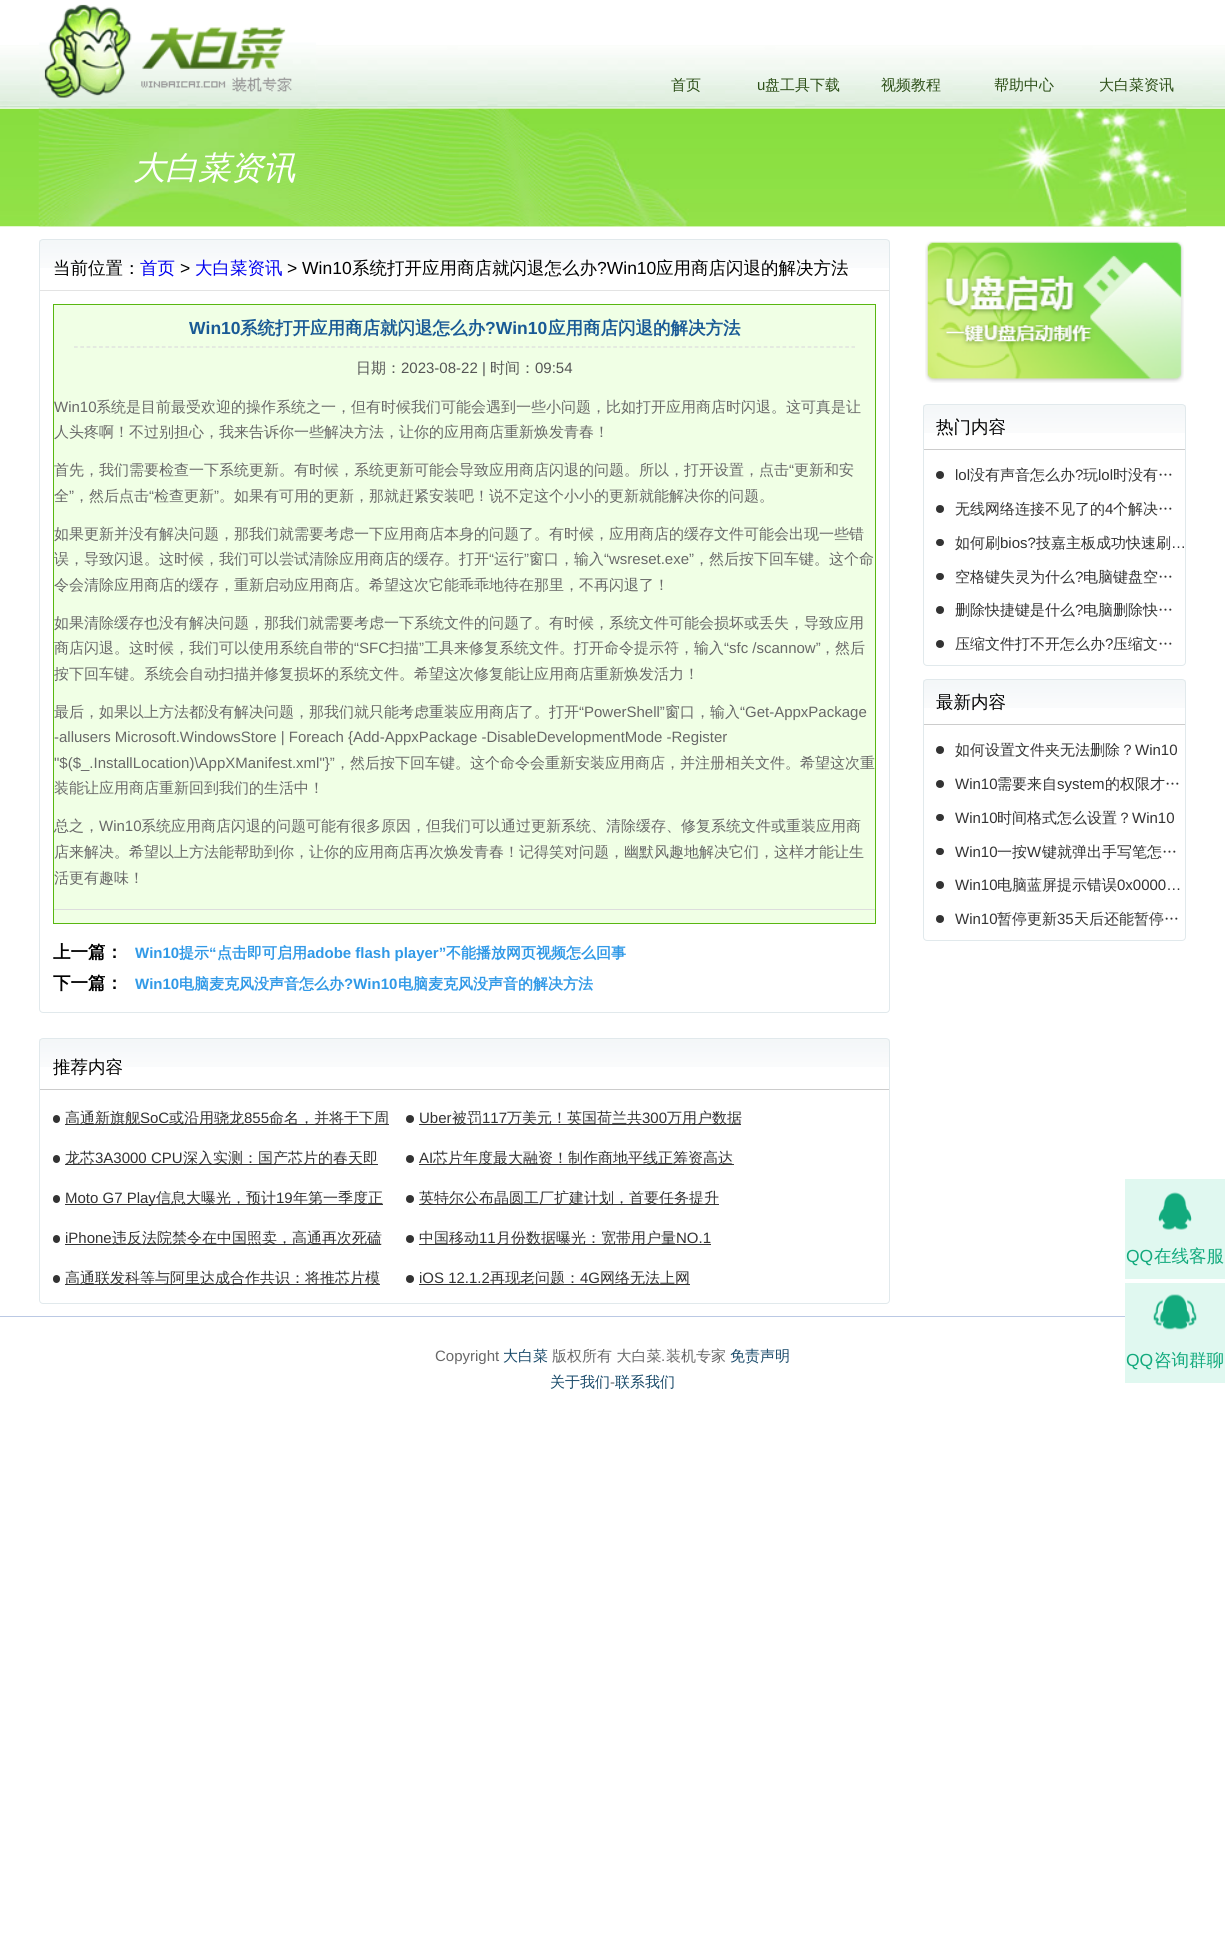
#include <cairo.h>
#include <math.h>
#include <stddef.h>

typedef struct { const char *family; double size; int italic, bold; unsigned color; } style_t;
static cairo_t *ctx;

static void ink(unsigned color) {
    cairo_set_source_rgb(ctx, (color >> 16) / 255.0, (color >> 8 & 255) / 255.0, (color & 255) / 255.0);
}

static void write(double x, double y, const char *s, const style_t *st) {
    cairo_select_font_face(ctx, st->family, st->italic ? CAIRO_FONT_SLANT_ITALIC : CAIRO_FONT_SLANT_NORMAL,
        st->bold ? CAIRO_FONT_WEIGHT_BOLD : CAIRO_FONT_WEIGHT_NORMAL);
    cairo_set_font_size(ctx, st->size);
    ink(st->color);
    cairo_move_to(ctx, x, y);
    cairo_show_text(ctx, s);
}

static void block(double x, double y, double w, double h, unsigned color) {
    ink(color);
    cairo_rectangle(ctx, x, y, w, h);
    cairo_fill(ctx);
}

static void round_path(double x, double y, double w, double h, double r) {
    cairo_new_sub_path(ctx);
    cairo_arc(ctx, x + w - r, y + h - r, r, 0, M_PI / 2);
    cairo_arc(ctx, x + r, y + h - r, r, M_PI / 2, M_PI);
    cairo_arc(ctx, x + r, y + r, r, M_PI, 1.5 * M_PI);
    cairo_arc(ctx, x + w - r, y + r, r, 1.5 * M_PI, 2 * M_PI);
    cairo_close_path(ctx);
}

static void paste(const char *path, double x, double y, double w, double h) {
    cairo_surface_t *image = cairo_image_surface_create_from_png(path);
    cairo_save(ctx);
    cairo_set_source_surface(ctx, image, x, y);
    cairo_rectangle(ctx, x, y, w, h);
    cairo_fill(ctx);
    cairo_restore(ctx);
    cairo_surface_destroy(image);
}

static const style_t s1 = {"WenQuanYi Zen Hei Medium", 15, 0, 0, 0x2c4f17};
static const style_t s2 = {"Liberation Sans", 15, 0, 0, 0x2c4f17};
static const style_t s3 = {"WenQuanYi Zen Hei Medium", 32.5, 1, 0, 0xffffff};
static const style_t s4 = {"WenQuanYi Zen Hei Medium", 17.5, 0, 0, 0x000000};
static const style_t s5 = {"WenQuanYi Zen Hei Medium", 17.5, 0, 0, 0x0000ee};
static const style_t s6 = {"Liberation Sans", 17.5, 0, 0, 0x000000};
static const style_t s7 = {"Liberation Sans", 17.5, 0, 1, 0x195a95};
static const style_t s8 = {"WenQuanYi Zen Hei", 17.5, 0, 1, 0x195a95};
static const style_t s9 = {"WenQuanYi Zen Hei Medium", 15, 0, 0, 0x555555};
static const style_t s10 = {"Liberation Sans", 15, 0, 0, 0x555555};
static const style_t s11 = {"Liberation Sans", 15, 0, 0, 0x686868};
static const style_t s12 = {"WenQuanYi Zen Hei Medium", 15, 0, 0, 0x686868};
static const style_t s13 = {"WenQuanYi Zen Hei", 17.5, 0, 1, 0x000000};
static const style_t s14 = {"Liberation Sans", 15, 0, 1, 0x3099e7};
static const style_t s15 = {"WenQuanYi Zen Hei", 15, 0, 1, 0x3099e7};
static const style_t s16 = {"WenQuanYi Zen Hei Medium", 15, 0, 0, 0x333333};
static const style_t s17 = {"Liberation Sans", 15, 0, 0, 0x333333};
static const style_t s18 = {"WenQuanYi Zen Hei Medium", 15, 0, 0, 0x194a6a};
static const style_t s19 = {"Liberation Sans", 17.5, 0, 0, 0x12aa7d};
static const style_t s20 = {"WenQuanYi Zen Hei Medium", 17.5, 0, 0, 0x12aa7d};

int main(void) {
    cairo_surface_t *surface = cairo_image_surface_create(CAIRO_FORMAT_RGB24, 1225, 1957);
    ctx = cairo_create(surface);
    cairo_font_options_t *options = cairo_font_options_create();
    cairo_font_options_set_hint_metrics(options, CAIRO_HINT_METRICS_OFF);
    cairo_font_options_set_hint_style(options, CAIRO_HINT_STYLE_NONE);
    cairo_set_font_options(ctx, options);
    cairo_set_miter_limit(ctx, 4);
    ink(0xffffff);
    cairo_paint(ctx);
    paste("pic1.png", 0, 45, 1225, 63);
    paste("pic2.png", 39, 4, 277, 104);
    write(671, 90, "首页", &s1);
    write(757, 90, "u", &s2);
    write(765, 90, "盘工具下载", &s1);
    write(881, 90, "视频教程", &s1);
    write(994, 90, "帮助中心", &s1);
    write(1099, 90, "大白菜资讯", &s1);
    paste("pic3.png", 0, 108, 1225, 119);
    paste("pic4.png", 38, 108, 1149, 119);
    write(133, 179, "大白菜资讯", &s3);
    paste("pic5.png", 39, 240, 851, 28);
    round_path(39.5, 239.5, 850, 773, 3.5);
    ink(0xe1e9ec);
    cairo_set_line_width(ctx, 1);
    cairo_stroke(ctx);
    block(40, 290, 849, 1, 0xe3e3e3);
    write(53, 274, "当前位置：", &s4);
    write(140, 274, "首页", &s5);
    write(180, 274, ">", &s6);
    write(195, 274, "大白菜资讯", &s5);
    write(287, 274, "> Win10", &s6);
    write(352, 274, "系统打开应用商店就闪退怎么办", &s4);
    write(597, 274, "?Win10", &s6);
    write(656, 274, "应用商店闪退的解决方法", &s4);
    ink(0xf0ffe5);
    cairo_rectangle(ctx, 53.5, 304.5, 822, 619);
    cairo_fill_preserve(ctx);
    ink(0x59b710);
    cairo_stroke(ctx);
    cairo_new_path(ctx);
    cairo_move_to(ctx, 74, 347);
    cairo_line_to(ctx, 855, 347);
    ink(0xdddddd);
    cairo_set_line_width(ctx, 1.2);
    cairo_set_dash(ctx, (double[]){3.75, 2.52}, 2, 0);
    cairo_stroke(ctx);
    write(189, 334, "Win10", &s7);
    write(240, 334, "系统打开应用商店就闪退怎么办", &s8);
    write(485, 334, "?Win10", &s7);
    write(548, 334, "应用商店闪退的解决方法", &s8);
    write(356, 373, "日期：", &s9);
    write(401, 373, "2023-08-22 |", &s10);
    write(490, 373, "时间：", &s9);
    write(535, 373, "09:54", &s10);
    block(54, 909, 821, 1, 0xdddddd);
    write(54, 412, "Win10", &s11);
    write(96, 412, "系统是目前最受欢迎的操作系统之一，但有时候我们可能会遇到一些小问题，比如打开应用商店时闪退。这可真是让", &s12);
    write(54, 437, "人头疼啊！不过别担心，我来告诉你一些解决方法，让你的应用商店重新焕发青春！", &s12);
    write(54, 475, "首先，我们需要检查一下系统更新。有时候，系统更新可能会导致应用商店闪退的问题。所以，打开设置，点击", &s12);
    write(789, 475, "“", &s11);
    write(794, 475, "更新和安", &s12);
    write(54, 501, "全", &s12);
    write(69, 501, "”", &s11);
    write(74, 501, "，然后点击", &s12);
    write(149, 501, "“", &s11);
    write(154, 501, "检查更新", &s12);
    write(214, 501, "”", &s11);
    write(219, 501, "。如果有可用的更新，那就赶紧安装吧！说不定这个小小的更新就能解决你的问题。", &s12);
    write(54, 539, "如果更新并没有解决问题，那我们就需要考虑一下应用商店本身的问题了。有时候，应用商店的缓存文件可能会出现一些错", &s12);
    write(54, 564, "误，导致闪退。这时候，我们可以尝试清除应用商店的缓存。打开", &s12);
    write(489, 564, "“", &s11);
    write(494, 564, "运行", &s12);
    write(524, 564, "”", &s11);
    write(529, 564, "窗口，输入", &s12);
    write(604, 564, "“wsreset.exe”", &s11);
    write(694, 564, "，然后按下回车键。这个命", &s12);
    write(54, 590, "令会清除应用商店的缓存，重新启动应用商店。希望这次它能乖乖地待在那里，不再闪退了！", &s12);
    write(54, 628, "如果清除缓存也没有解决问题，那我们就需要考虑一下系统文件的问题了。有时候，系统文件可能会损坏或丢失，导致应用", &s12);
    write(54, 653, "商店闪退。这时候，我们可以使用系统自带的", &s12);
    write(354, 653, "“SFC", &s11);
    write(389, 653, "扫描", &s12);
    write(419, 653, "”", &s11);
    write(424, 653, "工具来修复系统文件。打开命令提示符，输入", &s12);
    write(724, 653, "“sfc /scannow”", &s11);
    write(820, 653, "，然后", &s12);
    write(54, 679, "按下回车键。系统会自动扫描并修复损坏的系统文件。希望这次修复能让应用商店重新焕发活力！", &s12);
    write(54, 717, "最后，如果以上方法都没有解决问题，那我们就只能考虑重装应用商店了。打开", &s12);
    write(579, 717, "“PowerShell”", &s11);
    write(665, 717, "窗口，输入", &s12);
    write(740, 717, "“Get-AppxPackage", &s11);
    write(54, 742, "-allusers Microsoft.WindowsStore | Foreach {Add-AppxPackage -DisableDevelopmentMode -Register", &s11);
    write(54, 768, "\"$($_.InstallLocation)\\AppXManifest.xml\"}”", &s11);
    write(335, 768, "，然后按下回车键。这个命令会重新安装应用商店，并注册相关文件。希望这次重", &s12);
    write(54, 793, "装能让应用商店重新回到我们的生活中！", &s12);
    write(54, 831, "总之，", &s12);
    write(99, 831, "Win10", &s11);
    write(141, 831, "系统应用商店闪退的问题可能有很多原因，但我们可以通过更新系统、清除缓存、修复系统文件或重装应用商", &s12);
    write(54, 857, "店来解决。希望以上方法能帮助到你，让你的应用商店再次焕发青春！记得笑对问题，幽默风趣地解决它们，这样才能让生", &s12);
    write(54, 883, "活更有趣味！", &s12);
    write(53, 958, "上一篇：", &s13);
    write(135, 958, "Win10", &s14);
    write(179, 958, "提示", &s15);
    write(209, 958, "“", &s14);
    write(217, 958, "点击即可启用", &s15);
    write(307, 958, "adobe flash player”", &s14);
    write(446, 958, "不能播放网页视频怎么回事", &s15);
    write(53, 989, "下一篇：", &s13);
    write(135, 989, "Win10", &s14);
    write(179, 989, "电脑麦克风没声音怎么办", &s15);
    write(344, 989, "?Win10", &s14);
    write(398, 989, "电脑麦克风没声音的解决方法", &s15);
    paste("pic6.png", 39, 1039, 851, 28);
    round_path(39.5, 1038.5, 850, 265, 3.5);
    ink(0xe1e9ec);
    cairo_set_line_width(ctx, 1);
    cairo_set_dash(ctx, NULL, 0, 0);
    cairo_stroke(ctx);
    block(40, 1089, 849, 1, 0xcccccc);
    write(53, 1073, "推荐内容", &s4);
    ink(0x333333);
    round_path(53, 1115, 7, 8, 3.5);
    cairo_fill(ctx);
    block(65, 1124, 324, 1, 0x333333);
    write(65, 1123, "高通新旗舰", &s16);
    write(140, 1123, "SoC", &s17);
    write(169, 1123, "或沿用骁龙", &s16);
    write(244, 1123, "855", &s17);
    write(269, 1123, "命名，并将于下周", &s16);
    cairo_new_path(ctx);
    cairo_arc(ctx, 410, 1119, 4, 0, 2 * M_PI);
    cairo_fill(ctx);
    write(419, 1123, "Uber", &s17);
    block(419, 1124, 322, 1, 0x333333);
    write(452, 1123, "被罚", &s16);
    write(482, 1123, "117", &s17);
    write(507, 1123, "万美元！英国荷兰共", &s16);
    write(642, 1123, "300", &s17);
    write(667, 1123, "万用户数据", &s16);
    round_path(53, 1155, 7, 8, 3.5);
    cairo_fill(ctx);
    block(65, 1164, 313, 1, 0x333333);
    write(65, 1163, "龙芯", &s16);
    write(95, 1163, "3A3000 CPU", &s17);
    write(183, 1163, "深入实测：国产芯片的春天即", &s16);
    cairo_new_path(ctx);
    cairo_arc(ctx, 410, 1159, 4, 0, 2 * M_PI);
    cairo_fill(ctx);
    write(419, 1163, "AI", &s17);
    block(419, 1164, 315, 1, 0x333333);
    write(433, 1163, "芯片年度最大融资！制作商地平线正筹资高达", &s16);
    round_path(53, 1195, 7, 8, 3.5);
    cairo_fill(ctx);
    block(65, 1204, 318, 1, 0x333333);
    write(65, 1203, "Moto G7 Play", &s17);
    write(156, 1203, "信息大曝光，预计", &s16);
    write(276, 1203, "19", &s17);
    write(293, 1203, "年第一季度正", &s16);
    cairo_new_path(ctx);
    cairo_arc(ctx, 410, 1199, 4, 0, 2 * M_PI);
    cairo_fill(ctx);
    block(419, 1204, 300, 1, 0x333333);
    write(419, 1203, "英特尔公布晶圆工厂扩建计划，首要任务提升", &s16);
    round_path(53, 1235, 7, 8, 3.5);
    cairo_fill(ctx);
    write(65, 1243, "iPhone", &s17);
    block(65, 1244, 316, 1, 0x333333);
    write(112, 1243, "违反法院禁令在中国照卖，高通再次死磕", &s16);
    cairo_new_path(ctx);
    cairo_arc(ctx, 410, 1239, 4, 0, 2 * M_PI);
    cairo_fill(ctx);
    block(419, 1244, 292, 1, 0x333333);
    write(419, 1243, "中国移动", &s16);
    write(479, 1243, "11", &s17);
    write(496, 1243, "月份数据曝光：宽带用户量", &s16);
    write(676, 1243, "NO.1", &s17);
    round_path(53, 1275, 7, 8, 3.5);
    cairo_fill(ctx);
    block(65, 1284, 315, 1, 0x333333);
    write(65, 1283, "高通联发科等与阿里达成合作共识：将推芯片模", &s16);
    cairo_new_path(ctx);
    cairo_arc(ctx, 410, 1279, 4, 0, 2 * M_PI);
    cairo_fill(ctx);
    write(419, 1283, "iOS 12.1.2", &s17);
    block(419, 1284, 271, 1, 0x333333);
    write(490, 1283, "再现老问题：", &s16);
    write(580, 1283, "4G", &s17);
    write(600, 1283, "网络无法上网", &s16);
    paste("pic7.png", 925, 241, 259, 142);
    paste("pic8.png", 923, 405, 263, 28);
    round_path(923.5, 404.5, 262, 261, 3.5);
    ink(0xe1e9ec);
    cairo_stroke(ctx);
    block(924, 449, 261, 1, 0xcccccc);
    write(936, 433, "热门内容", &s4);
    ink(0x333333);
    cairo_new_path(ctx);
    cairo_arc(ctx, 940, 475, 4, 0, 2 * M_PI);
    cairo_fill(ctx);
    write(955, 480, "lol", &s17);
    write(970, 480, "没有声音怎么办", &s16);
    write(1075, 480, "?", &s17);
    write(1083, 480, "玩", &s16);
    write(1098, 480, "lol", &s17);
    write(1113, 480, "时没有…", &s16);
    cairo_new_path(ctx);
    cairo_arc(ctx, 940, 509, 4, 0, 2 * M_PI);
    cairo_fill(ctx);
    write(955, 514, "无线网络连接不见了的", &s16);
    write(1105, 514, "4", &s17);
    write(1113, 514, "个解决…", &s16);
    round_path(936, 539, 8, 7, 3.5);
    cairo_fill(ctx);
    write(955, 548, "如何刷", &s16);
    write(1000, 548, "bios?", &s17);
    write(1036, 548, "技嘉主板成功快速刷", &s16);
    write(1171, 548, "…", &s17);
    round_path(936, 573, 8, 7, 3.5);
    cairo_fill(ctx);
    write(955, 582, "空格键失灵为什么", &s16);
    write(1075, 582, "?", &s17);
    write(1083, 582, "电脑键盘空…", &s16);
    cairo_new_path(ctx);
    cairo_arc(ctx, 940, 610, 4, 0, 2 * M_PI);
    cairo_fill(ctx);
    write(955, 615, "删除快捷键是什么", &s16);
    write(1075, 615, "?", &s17);
    write(1083, 615, "电脑删除快…", &s16);
    cairo_new_path(ctx);
    cairo_arc(ctx, 940, 644, 4, 0, 2 * M_PI);
    cairo_fill(ctx);
    write(955, 649, "压缩文件打不开怎么办", &s16);
    write(1105, 649, "?", &s17);
    write(1113, 649, "压缩文…", &s16);
    paste("pic8.png", 923, 680, 263, 28);
    round_path(923.5, 679.5, 262, 261, 3.5);
    ink(0xe1e9ec);
    cairo_stroke(ctx);
    block(924, 724, 261, 1, 0xcccccc);
    write(936, 708, "最新内容", &s4);
    ink(0x333333);
    cairo_new_path(ctx);
    cairo_arc(ctx, 940, 750, 4, 0, 2 * M_PI);
    cairo_fill(ctx);
    write(955, 755, "如何设置文件夹无法删除？", &s16);
    write(1135, 755, "Win10", &s17);
    cairo_new_path(ctx);
    cairo_arc(ctx, 940, 784, 4, 0, 2 * M_PI);
    cairo_fill(ctx);
    write(955, 789, "Win10", &s17);
    write(997, 789, "需要来自", &s16);
    write(1057, 789, "system", &s17);
    write(1105, 789, "的权限才…", &s16);
    round_path(936, 814, 8, 7, 3.5);
    cairo_fill(ctx);
    write(955, 823, "Win10", &s17);
    write(997, 823, "时间格式怎么设置？", &s16);
    write(1132, 823, "Win10", &s17);
    round_path(936, 848, 8, 7, 3.5);
    cairo_fill(ctx);
    write(955, 857, "Win10", &s17);
    write(997, 857, "一按", &s16);
    write(1027, 857, "W", &s17);
    write(1042, 857, "键就弹出手写笔怎…", &s16);
    cairo_new_path(ctx);
    cairo_arc(ctx, 940, 885, 4, 0, 2 * M_PI);
    cairo_fill(ctx);
    write(955, 890, "Win10", &s17);
    write(997, 890, "电脑蓝屏提示错误", &s16);
    write(1117, 890, "0x0000…", &s17);
    cairo_new_path(ctx);
    cairo_arc(ctx, 940, 919, 4, 0, 2 * M_PI);
    cairo_fill(ctx);
    write(955, 924, "Win10", &s17);
    write(997, 924, "暂停更新", &s16);
    write(1057, 924, "35", &s17);
    write(1074, 924, "天后还能暂停…", &s16);
    block(0, 1316, 1125, 1, 0xbbc9e4);
    write(435, 1361, "Copyright", &s11);
    write(503, 1361, "大白菜", &s18);
    write(552, 1361, "版权所有 大白菜", &s12);
    write(661, 1361, ".", &s11);
    write(666, 1361, "装机专家", &s12);
    write(730, 1361, "免责声明", &s18);
    write(550, 1387, "关于我们", &s18);
    write(610, 1387, "-", &s11);
    write(615, 1387, "联系我们", &s18);
    block(1125, 1179, 100, 100, 0xe0f8f0);
    paste("pic9.png", 1158, 1192, 34, 38);
    write(1126, 1262, "QQ", &s19);
    write(1154, 1262, "在线客服", &s20);
    block(1125, 1283, 100, 100, 0xe0f8f0);
    paste("pic10.png", 1153, 1294, 44, 36);
    write(1126, 1366, "QQ", &s19);
    write(1154, 1366, "咨询群聊", &s20);
    cairo_surface_write_to_png(surface, "screenshot.png");
    cairo_font_options_destroy(options);
    cairo_destroy(ctx);
    cairo_surface_destroy(surface);
    return 0;
}
